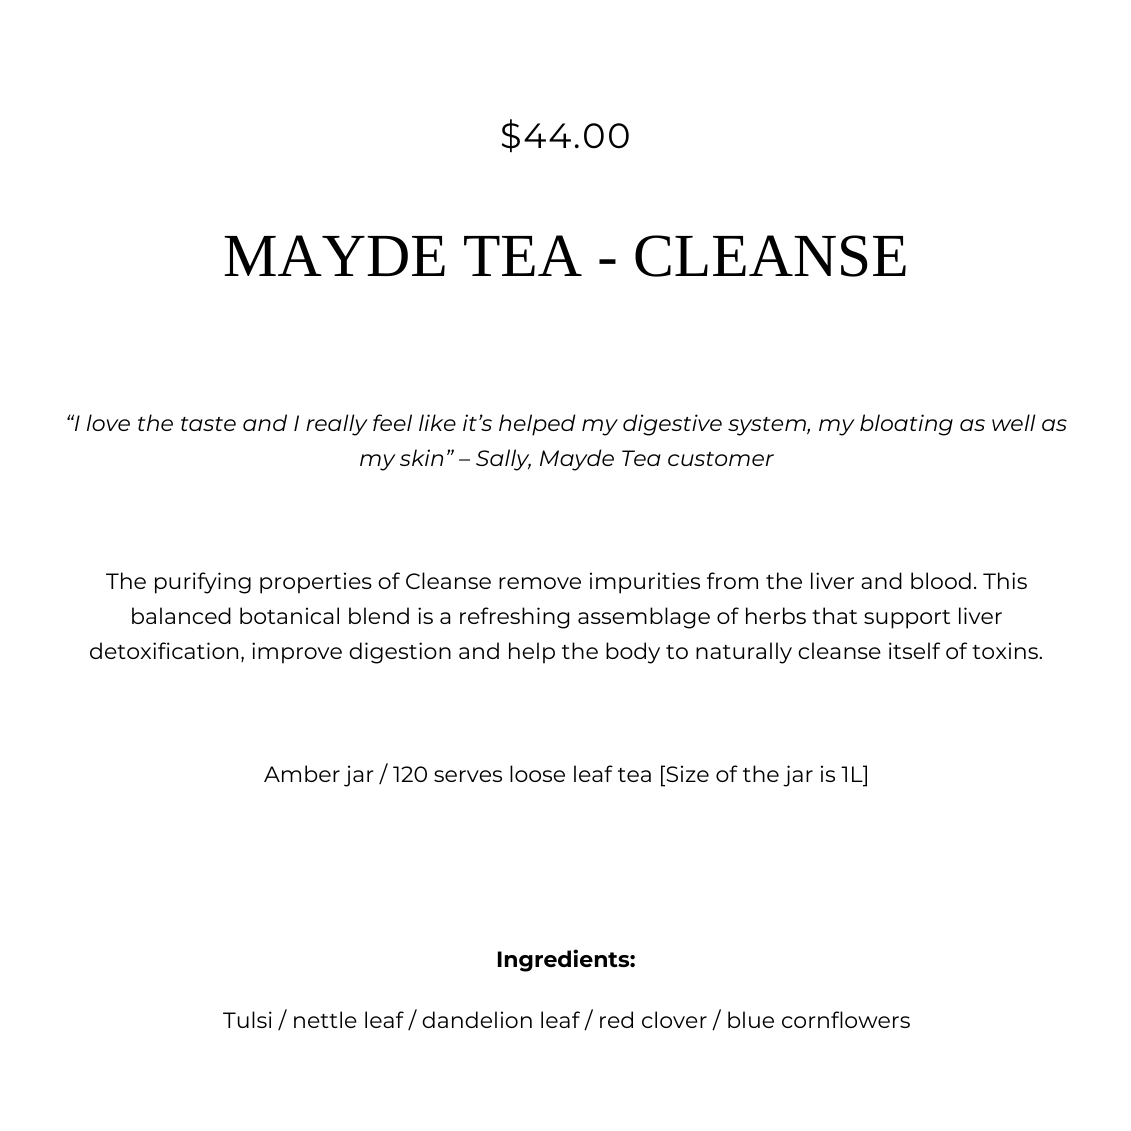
#include <cairo.h>
#include <math.h>
#include <stddef.h>

typedef struct { const char *family; double size; int italic, bold; unsigned color; } style_t;
static cairo_t *ctx;

static void ink(unsigned color) {
    cairo_set_source_rgb(ctx, (color >> 16) / 255.0, (color >> 8 & 255) / 255.0, (color & 255) / 255.0);
}

static void write(double x, double y, const char *s, const style_t *st) {
    cairo_select_font_face(ctx, st->family, st->italic ? CAIRO_FONT_SLANT_ITALIC : CAIRO_FONT_SLANT_NORMAL,
        st->bold ? CAIRO_FONT_WEIGHT_BOLD : CAIRO_FONT_WEIGHT_NORMAL);
    cairo_set_font_size(ctx, st->size);
    ink(st->color);
    cairo_move_to(ctx, x, y);
    cairo_show_text(ctx, s);
}

static void write_spaced(double x, double y, const char *s, double letter, double word) {
    cairo_move_to(ctx, x, y);
    while (*s) {
        char ch[5] = {0};
        int n = 0;
        do ch[n++] = *s++; while ((*s & 0xC0) == 0x80);
        cairo_show_text(ctx, ch);
        cairo_rel_move_to(ctx, letter + word * (*ch == ' '), 0);
    }
}

static const style_t s1 = {"Liberation Serif", 61.25, 0, 0, 0x000000};
static const style_t s2 = {"Montserrat", 22.05, 1, 0, 0x000000};
static const style_t s3 = {"Montserrat", 22.05, 0, 0, 0x000000};
static const style_t s4 = {"Montserrat", 22.05, 0, 1, 0x000000};

int main(void) {
    cairo_surface_t *surface = cairo_image_surface_create(CAIRO_FORMAT_RGB24, 1131, 1131);
    ctx = cairo_create(surface);
    cairo_font_options_t *options = cairo_font_options_create();
    cairo_font_options_set_hint_metrics(options, CAIRO_HINT_METRICS_OFF);
    cairo_font_options_set_hint_style(options, CAIRO_HINT_STYLE_NONE);
    cairo_set_font_options(ctx, options);
    cairo_set_miter_limit(ctx, 4);
    ink(0xffffff);
    cairo_paint(ctx);
    cairo_select_font_face(ctx, "Montserrat", CAIRO_FONT_SLANT_NORMAL, CAIRO_FONT_WEIGHT_NORMAL);
    cairo_set_font_size(ctx, 35);
    ink(0x000000);
    write_spaced(500, 148, "$44.00", 1.75, 0);
    write(223, 276, "MAYDE TEA - CLEANSE", &s1);
    write(65, 431, "“I love the taste and I really feel like it’s helped my digestive system, my bloating as well as", &s2);
    write(359, 466, "my skin” – Sally, Mayde Tea customer", &s2);
    write(106, 589, "The purifying properties of Cleanse remove impurities from the liver and blood. This", &s3);
    write(130, 624, "balanced botanical blend is a refreshing assemblage of herbs that support liver", &s3);
    write(89, 659, "detoxification, improve digestion and help the body to naturally cleanse itself of toxins.", &s3);
    write(264, 782, "Amber jar / 120 serves loose leaf tea [Size of the jar is 1L]", &s3);
    write(496, 967, "Ingredients:", &s4);
    write(223, 1028, "Tulsi / nettle leaf / dandelion leaf / red clover / blue cornflowers", &s3);
    cairo_surface_write_to_png(surface, "screenshot.png");
    cairo_font_options_destroy(options);
    cairo_destroy(ctx);
    cairo_surface_destroy(surface);
    return 0;
}
